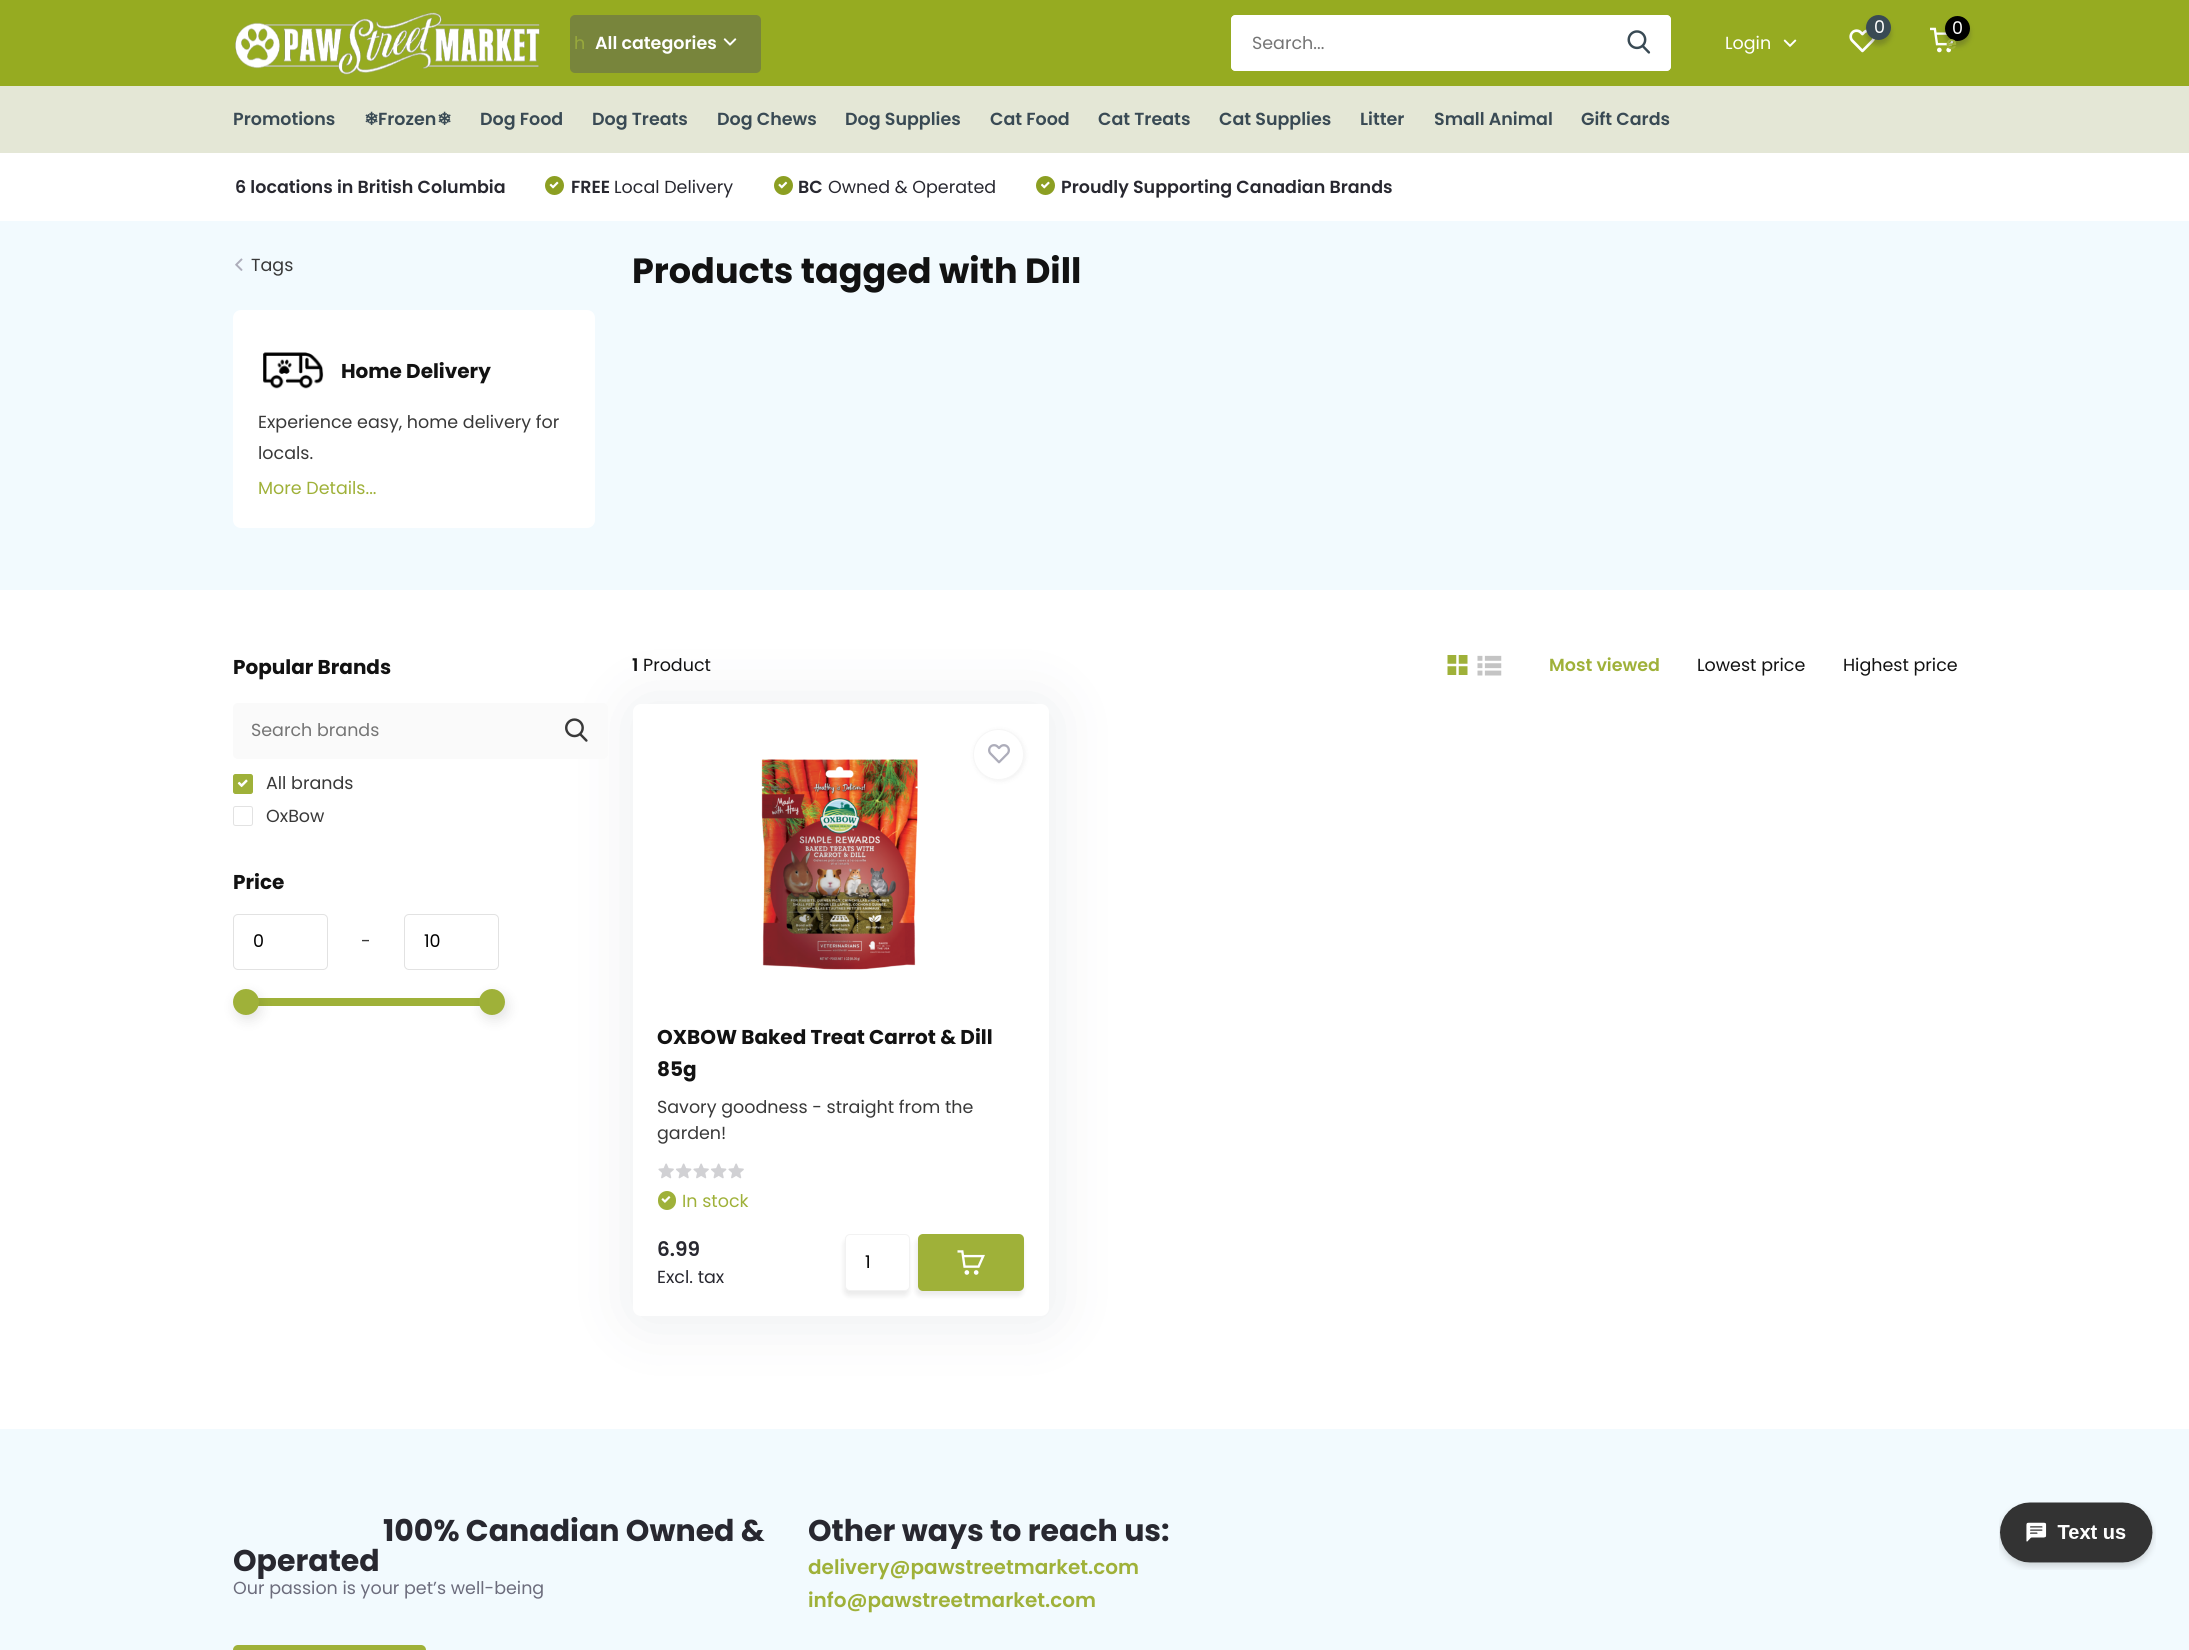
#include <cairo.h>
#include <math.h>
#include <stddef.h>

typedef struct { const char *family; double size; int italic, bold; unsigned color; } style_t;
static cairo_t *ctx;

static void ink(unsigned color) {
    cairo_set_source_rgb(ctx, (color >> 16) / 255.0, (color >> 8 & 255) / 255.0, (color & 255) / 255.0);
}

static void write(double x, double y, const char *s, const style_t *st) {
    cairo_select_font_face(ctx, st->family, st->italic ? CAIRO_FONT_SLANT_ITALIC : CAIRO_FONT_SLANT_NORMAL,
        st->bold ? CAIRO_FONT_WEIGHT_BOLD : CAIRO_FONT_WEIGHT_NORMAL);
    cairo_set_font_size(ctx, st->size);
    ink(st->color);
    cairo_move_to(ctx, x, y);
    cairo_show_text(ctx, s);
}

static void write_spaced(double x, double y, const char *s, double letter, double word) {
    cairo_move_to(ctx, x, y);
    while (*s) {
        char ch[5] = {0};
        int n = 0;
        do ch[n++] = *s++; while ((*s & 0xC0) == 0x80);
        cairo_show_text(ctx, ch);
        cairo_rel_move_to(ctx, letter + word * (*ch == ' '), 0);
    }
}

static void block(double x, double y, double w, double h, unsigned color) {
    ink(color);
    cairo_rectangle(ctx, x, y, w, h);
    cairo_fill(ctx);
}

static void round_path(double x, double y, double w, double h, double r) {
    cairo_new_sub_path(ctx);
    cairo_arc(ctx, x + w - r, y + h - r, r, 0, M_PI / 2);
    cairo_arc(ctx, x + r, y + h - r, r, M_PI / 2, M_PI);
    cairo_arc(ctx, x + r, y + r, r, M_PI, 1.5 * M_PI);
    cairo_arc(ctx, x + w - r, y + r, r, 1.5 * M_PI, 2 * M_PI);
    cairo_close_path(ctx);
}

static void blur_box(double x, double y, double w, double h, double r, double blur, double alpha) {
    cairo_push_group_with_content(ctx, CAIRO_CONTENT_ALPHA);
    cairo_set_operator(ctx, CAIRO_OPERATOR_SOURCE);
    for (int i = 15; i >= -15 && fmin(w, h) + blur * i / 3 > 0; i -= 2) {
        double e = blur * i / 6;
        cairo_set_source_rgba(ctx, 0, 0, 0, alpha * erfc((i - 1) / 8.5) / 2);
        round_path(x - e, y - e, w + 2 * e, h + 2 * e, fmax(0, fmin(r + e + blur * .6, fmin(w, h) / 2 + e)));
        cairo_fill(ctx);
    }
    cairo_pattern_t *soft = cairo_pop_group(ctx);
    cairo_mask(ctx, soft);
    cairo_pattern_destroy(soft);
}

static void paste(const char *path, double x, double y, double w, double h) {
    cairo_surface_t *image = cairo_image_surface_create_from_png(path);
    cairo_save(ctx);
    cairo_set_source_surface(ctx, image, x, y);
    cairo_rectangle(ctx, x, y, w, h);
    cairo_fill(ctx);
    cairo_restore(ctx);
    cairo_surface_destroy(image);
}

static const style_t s1 = {"Poppins SemiBold", 17.5, 0, 0, 0xffffff};
static const style_t s2 = {"Poppins", 17.5, 0, 0, 0xffffff};
static const style_t s3 = {"Poppins", 17.5, 0, 0, 0x757575};
static const style_t s4 = {"Poppins", 17.5, 0, 0, 0x98a93c};
static const style_t s5 = {"Poppins SemiBold", 17.5, 0, 0, 0x394a54};
static const style_t s6 = {"DejaVu Sans", 17.5, 0, 1, 0x394a54};
static const style_t s7 = {"Poppins SemiBold", 17.5, 0, 0, 0x282830};
static const style_t s8 = {"Poppins", 17.5, 0, 0, 0x282830};
static const style_t s9 = {"Poppins", 17.5, 0, 0, 0x393939};
static const style_t s10 = {"Poppins", 20, 0, 1, 0x121212};
static const style_t s11 = {"Poppins", 17.5, 0, 0, 0x9fb139};
static const style_t s12 = {"Poppins", 35, 0, 1, 0x121212};
static const style_t s13 = {"Poppins", 17.5, 0, 0, 0x000000};
static const style_t s14 = {"Poppins SemiBold", 17.5, 0, 0, 0x121212};
static const style_t s15 = {"Poppins", 17.5, 0, 0, 0x121212};
static const style_t s16 = {"Poppins SemiBold", 17.5, 0, 0, 0x9fb139};
static const style_t s17 = {"Poppins SemiBold", 20, 0, 0, 0x282830};
static const style_t s18 = {"Poppins", 30, 0, 1, 0x282830};
static const style_t s19 = {"Poppins", 17.5, 0, 0, 0x6c6c7c};
static const style_t s20 = {"Poppins SemiBold", 20, 0, 0, 0x9fb139};

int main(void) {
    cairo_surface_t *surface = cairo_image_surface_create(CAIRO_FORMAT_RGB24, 2189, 1650);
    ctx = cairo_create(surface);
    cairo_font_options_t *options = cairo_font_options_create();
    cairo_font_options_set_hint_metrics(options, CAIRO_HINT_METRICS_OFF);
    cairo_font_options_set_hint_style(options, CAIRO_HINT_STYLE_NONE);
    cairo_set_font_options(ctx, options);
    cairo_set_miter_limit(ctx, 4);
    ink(0xffffff);
    cairo_paint(ctx);
    block(0, 0, 2189, 86, 0x96ab21);
    paste("pic1.png", 235, 12, 305, 63);
    ink(0x78853c);
    round_path(570, 15, 191, 58, 5);
    cairo_fill(ctx);
    write(595, 49, "All categories", &s1);
    paste("pic2.png", 723, 38, 14, 8);
    paste("pic3.png", 1849, 29, 26, 24);
    ink(0x282830);
    blur_box(1866, 20, 25, 25, 12.5, 2.5, 0.25);
    ink(0x394a54);
    cairo_arc(ctx, 1878.5, 27.5, 12.5, 0, 2 * M_PI);
    cairo_fill(ctx);
    write(1874, 33, "0", &s2);
    paste("pic4.png", 1930, 27, 25, 26);
    ink(0x282830);
    blur_box(1945, 21, 25, 25, 12.5, 2.5, 0.25);
    ink(0x000000);
    cairo_arc(ctx, 1957.5, 28.5, 12.5, 0, 2 * M_PI);
    cairo_fill(ctx);
    write(1952, 34, "0", &s2);
    cairo_new_path(ctx);
    cairo_move_to(ctx, 1236, 15);
    cairo_line_to(ctx, 1609, 15);
    cairo_line_to(ctx, 1609, 71);
    cairo_line_to(ctx, 1236, 71);
    cairo_curve_to(ctx, 1233, 71, 1231, 69, 1231, 66);
    cairo_line_to(ctx, 1231, 20);
    cairo_curve_to(ctx, 1231, 17, 1233, 15, 1236, 15);
    cairo_close_path(ctx);
    cairo_fill(ctx);
    cairo_set_fill_rule(ctx, CAIRO_FILL_RULE_EVEN_ODD);
    cairo_new_path(ctx);
    cairo_move_to(ctx, 1236, 15);
    cairo_line_to(ctx, 1609, 15);
    cairo_line_to(ctx, 1609, 71);
    cairo_line_to(ctx, 1236, 71);
    cairo_curve_to(ctx, 1233, 71, 1231, 69, 1231, 66);
    cairo_line_to(ctx, 1231, 20);
    cairo_curve_to(ctx, 1231, 17, 1233, 15, 1236, 15);
    cairo_close_path(ctx);
    cairo_move_to(ctx, 1236, 16);
    cairo_line_to(ctx, 1609, 16);
    cairo_line_to(ctx, 1609, 70);
    cairo_line_to(ctx, 1236, 70);
    cairo_curve_to(ctx, 1234, 70, 1232, 68, 1232, 66);
    cairo_line_to(ctx, 1232, 20);
    cairo_curve_to(ctx, 1232, 18, 1234, 16, 1236, 16);
    cairo_close_path(ctx);
    cairo_fill(ctx);
    write(1252, 49, "Search...", &s3);
    ink(0xffffff);
    cairo_new_path(ctx);
    cairo_move_to(ctx, 1609, 15);
    cairo_line_to(ctx, 1666, 15);
    cairo_curve_to(ctx, 1669, 15, 1671, 17, 1671, 20);
    cairo_line_to(ctx, 1671, 66);
    cairo_curve_to(ctx, 1671, 69, 1669, 71, 1666, 71);
    cairo_line_to(ctx, 1609, 71);
    cairo_close_path(ctx);
    cairo_fill(ctx);
    cairo_new_path(ctx);
    cairo_move_to(ctx, 1609, 15);
    cairo_line_to(ctx, 1666, 15);
    cairo_curve_to(ctx, 1669, 15, 1671, 17, 1671, 20);
    cairo_line_to(ctx, 1671, 66);
    cairo_curve_to(ctx, 1671, 69, 1669, 71, 1666, 71);
    cairo_line_to(ctx, 1609, 71);
    cairo_close_path(ctx);
    cairo_move_to(ctx, 1609, 16);
    cairo_line_to(ctx, 1666, 16);
    cairo_curve_to(ctx, 1668, 16, 1670, 18, 1670, 20);
    cairo_line_to(ctx, 1670, 66);
    cairo_curve_to(ctx, 1670, 68, 1668, 70, 1666, 70);
    cairo_line_to(ctx, 1609, 70);
    cairo_close_path(ctx);
    cairo_fill(ctx);
    paste("pic5.png", 1627, 30, 24, 24);
    write(1725, 49, "Login", &s2);
    paste("pic6.png", 1783, 39, 14, 8);
    write(574, 49, "h", &s4);
    cairo_select_font_face(ctx, "Poppins Medium", CAIRO_FONT_SLANT_NORMAL, CAIRO_FONT_WEIGHT_NORMAL);
    ink(0x9fb139);
    write_spaced(1946, 49, "e", 1, 0);
    block(0, 86, 2189, 67, 0xe4e7d6);
    write(233, 125, "Promotions", &s5);
    write(364, 125, "❄", &s6);
    write(378, 125, "Frozen", &s5);
    write(437, 125, "❄", &s6);
    write(480, 125, "Dog Food", &s5);
    write(592, 125, "Dog Treats", &s5);
    write(717, 125, "Dog Chews", &s5);
    write(845, 125, "Dog Supplies", &s5);
    write(990, 125, "Cat Food", &s5);
    write(1098, 125, "Cat Treats", &s5);
    write(1219, 125, "Cat Supplies", &s5);
    write(1360, 125, "Litter", &s5);
    write(1434, 125, "Small Animal", &s5);
    write(1581, 125, "Gift Cards", &s5);
    write(235, 193, "6 locations in British Columbia", &s7);
    ink(0x8c9f22);
    cairo_new_path(ctx);
    cairo_arc(ctx, 554.5, 185.5, 9.5, 0, 2 * M_PI);
    cairo_fill(ctx);
    paste("pic7.png", 549, 181, 10, 8);
    write(571, 193, "FREE", &s7);
    write(614, 193, "Local Delivery", &s8);
    ink(0x8c9f22);
    cairo_new_path(ctx);
    cairo_arc(ctx, 783.5, 185.5, 9.5, 0, 2 * M_PI);
    cairo_fill(ctx);
    paste("pic8.png", 778, 181, 10, 8);
    write(798, 193, "BC", &s7);
    write(828, 193, "Owned & Operated", &s8);
    ink(0x8c9f22);
    cairo_new_path(ctx);
    cairo_arc(ctx, 1045.5, 185.5, 9.5, 0, 2 * M_PI);
    cairo_fill(ctx);
    paste("pic9.png", 1041, 181, 9, 8);
    write(1061, 193, "Proudly Supporting Canadian Brands", &s7);
    block(0, 221, 2189, 369, 0xf2fafe);
    paste("pic10.png", 235, 258, 8, 13);
    write(251, 271, "Tags", &s9);
    ink(0xffffff);
    round_path(233, 310, 362, 218, 8);
    cairo_fill(ctx);
    paste("pic11.png", 263, 352, 61, 37);
    write(341, 378, "Home Delivery", &s10);
    write(258, 428, "Experience easy, home delivery for", &s9);
    write(258, 459, "locals.", &s9);
    write(258, 494, "More Details...", &s11);
    write(632, 283, "Products tagged with Dill", &s12);
    write(233, 674, "Popular Brands", &s10);
    ink(0x263f4d);
    blur_box(635, 706, 416, 613, 8, 31, 0.1);
    ink(0xfafafa);
    round_path(233, 703, 375, 56, 5);
    cairo_fill(ctx);
    write(251, 736, "Search brands", &s3);
    paste("pic12.png", 565, 718, 23, 24);
    ink(0x9fb139);
    round_path(233.5, 774.5, 19, 19, 2);
    cairo_fill_preserve(ctx);
    cairo_set_line_width(ctx, 1);
    cairo_stroke(ctx);
    paste("pic13.png", 237, 779, 11, 9);
    cairo_arc(ctx, 241, 782, 7.5, 0, 2 * M_PI);
    cairo_stroke(ctx);
    write(266, 789, "All brands", &s9);
    round_path(233.5, 806.5, 19, 19, 2);
    ink(0xe2e2e2);
    cairo_stroke(ctx);
    write(266, 822, "OxBow", &s9);
    write(233, 889, "Price", &s10);
    round_path(233.5, 914.5, 94, 55, 4.5);
    ink(0xe2e2e2);
    cairo_stroke(ctx);
    write(253, 947, "0", &s13);
    write(361, 947, "-", &s9);
    round_path(404.5, 914.5, 94, 55, 4.5);
    ink(0xe2e2e2);
    cairo_stroke(ctx);
    write(424, 947, "10", &s13);
    block(258, 998, 222, 8, 0x9fb139);
    ink(0x000000);
    blur_box(235, 994, 26, 26, 13, 6, 0.1);
    ink(0x9fb139);
    cairo_arc(ctx, 246, 1002, 13, 0, 2 * M_PI);
    cairo_fill(ctx);
    ink(0x000000);
    blur_box(481, 994, 27, 26, 13, 6, 0.1);
    ink(0x9fb139);
    cairo_arc(ctx, 492, 1002, 13, 0, 2 * M_PI);
    cairo_fill(ctx);
    write(632, 671, "1", &s14);
    write(643, 671, "Product", &s15);
    paste("pic14.png", 1447, 655, 21, 20);
    paste("pic15.png", 1477, 655, 25, 21);
    write(1549, 671, "Most viewed", &s16);
    write(1697, 671, "Lowest price", &s15);
    write(1843, 671, "Highest price", &s15);
    ink(0xffffff);
    round_path(633, 704, 416, 612, 8);
    cairo_fill(ctx);
    paste("pic16.png", 761, 759, 157, 211);
    ink(0x000000);
    blur_box(974, 730, 51, 51, 25.5, 2.5, 0.06);
    ink(0xffffff);
    cairo_arc(ctx, 998.5, 754.5, 25, 0, 2 * M_PI);
    cairo_fill_preserve(ctx);
    ink(0xf6f6f6);
    cairo_stroke(ctx);
    paste("pic17.png", 988, 744, 22, 20);
    write(657, 1044, "OXBOW Baked Treat Carrot & Dill", &s10);
    write(657, 1076, "85g", &s10);
    write(657, 1113, "Savory goodness - straight from the", &s9);
    write(657, 1139, "garden!", &s9);
    paste("pic18.png", 658, 1163, 16, 16);
    paste("pic19.png", 676, 1163, 16, 16);
    paste("pic18.png", 693, 1163, 16, 16);
    paste("pic19.png", 711, 1163, 16, 16);
    paste("pic18.png", 728, 1163, 16, 16);
    ink(0x9fb139);
    round_path(658, 1191, 18, 19, 9);
    cairo_fill(ctx);
    paste("pic20.png", 661, 1196, 10, 7);
    write(682, 1207, "In stock", &s11);
    write(657, 1256, "6.99", &s17);
    write(657, 1283, "Excl. tax", &s8);
    ink(0x000000);
    blur_box(844, 1239, 65, 57, 5, 2.5, 0.08);
    blur_box(916, 1239, 107, 57, 5, 2.5, 0.08);
    ink(0xffffff);
    round_path(845.5, 1234.5, 64, 56, 4.5);
    cairo_fill_preserve(ctx);
    ink(0xf2f2f2);
    cairo_stroke(ctx);
    write(865, 1268, "1", &s13);
    ink(0x9fb139);
    round_path(918, 1234, 106, 57, 5);
    cairo_fill(ctx);
    paste("pic21.png", 957, 1250, 28, 25);
    block(0, 1429, 2189, 221, 0xf2fafe);
    write(383, 1541, "100% Canadian Owned &", &s18);
    write(233, 1571, "Operated", &s18);
    write(233, 1594, "Our passion is your pet’s well-being", &s19);
    ink(0x9fb139);
    round_path(233, 1645, 193, 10, 5);
    cairo_fill(ctx);
    write(808, 1541, "Other ways to reach us:", &s18);
    write(808, 1574, "delivery@pawstreetmarket.com", &s20);
    write(808, 1607, "info@pawstreetmarket.com", &s20);
    paste("pic22.png", 1999, 1502, 157, 68);
    cairo_surface_write_to_png(surface, "screenshot.png");
    cairo_font_options_destroy(options);
    cairo_destroy(ctx);
    cairo_surface_destroy(surface);
    return 0;
}
